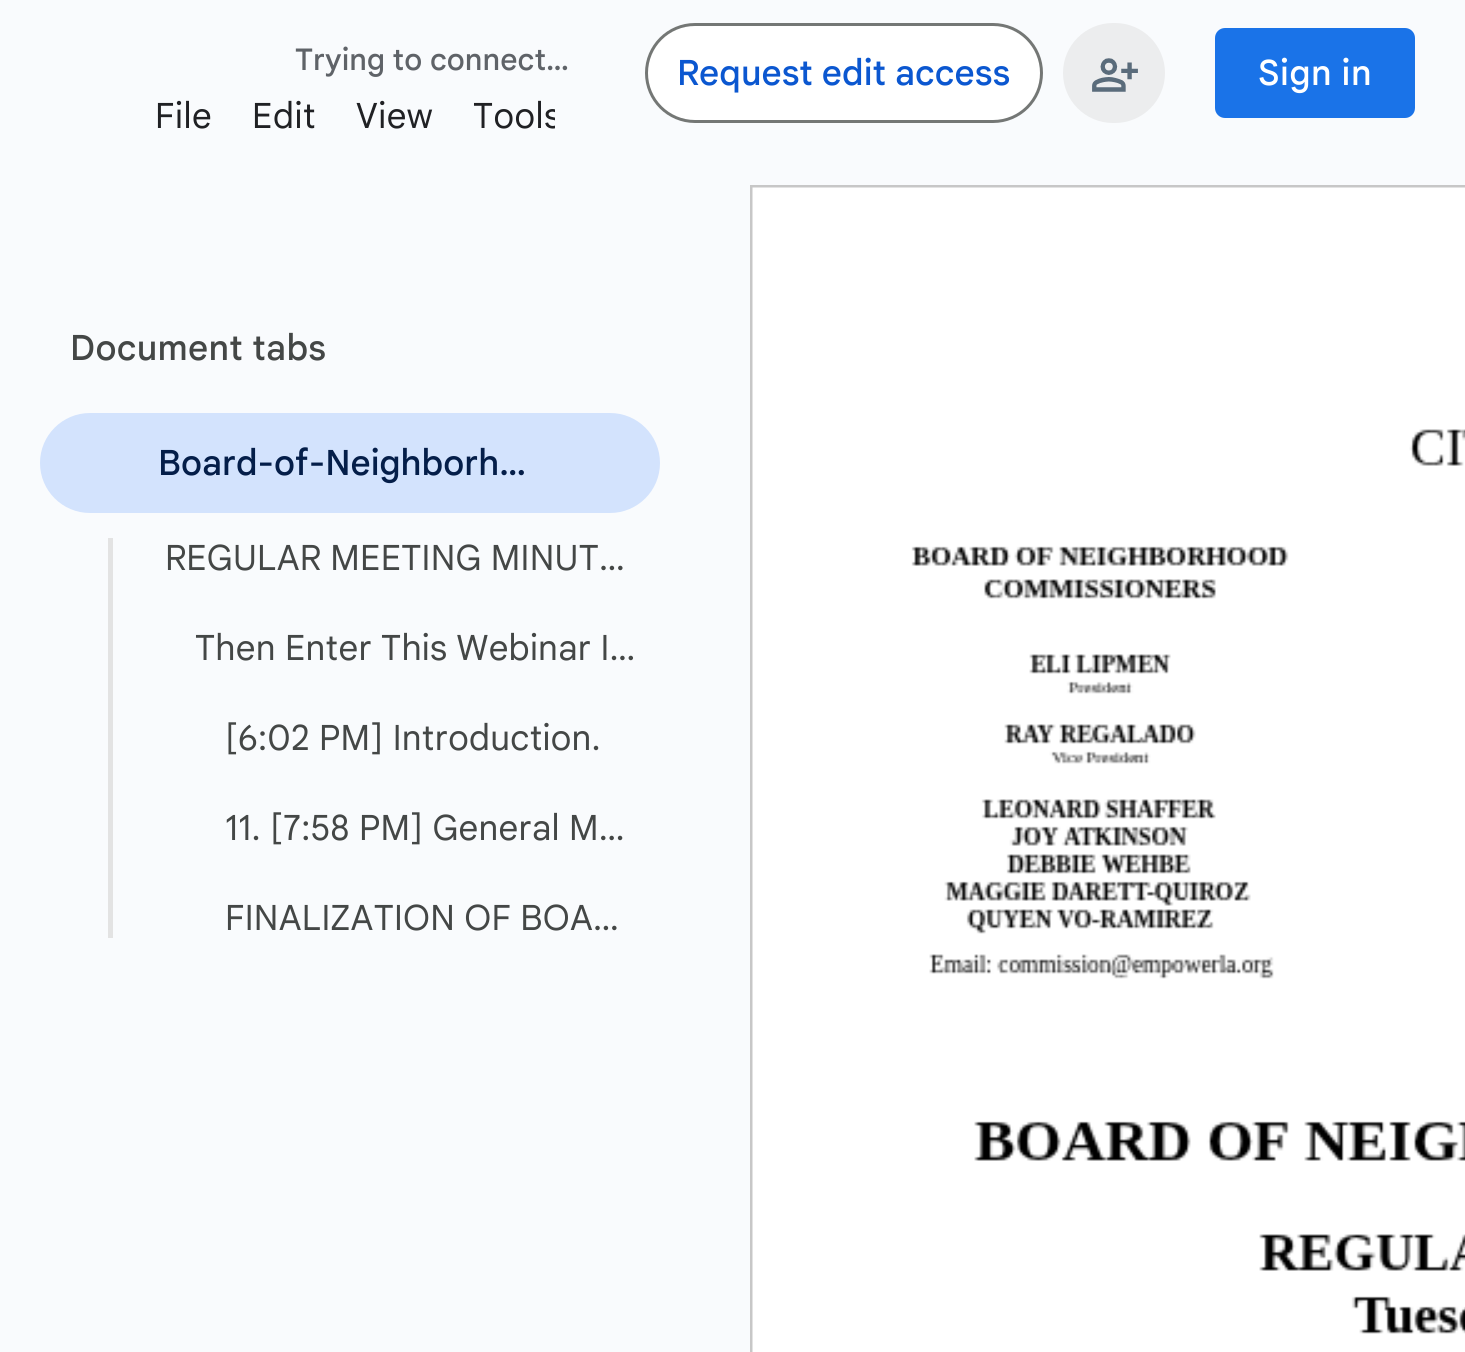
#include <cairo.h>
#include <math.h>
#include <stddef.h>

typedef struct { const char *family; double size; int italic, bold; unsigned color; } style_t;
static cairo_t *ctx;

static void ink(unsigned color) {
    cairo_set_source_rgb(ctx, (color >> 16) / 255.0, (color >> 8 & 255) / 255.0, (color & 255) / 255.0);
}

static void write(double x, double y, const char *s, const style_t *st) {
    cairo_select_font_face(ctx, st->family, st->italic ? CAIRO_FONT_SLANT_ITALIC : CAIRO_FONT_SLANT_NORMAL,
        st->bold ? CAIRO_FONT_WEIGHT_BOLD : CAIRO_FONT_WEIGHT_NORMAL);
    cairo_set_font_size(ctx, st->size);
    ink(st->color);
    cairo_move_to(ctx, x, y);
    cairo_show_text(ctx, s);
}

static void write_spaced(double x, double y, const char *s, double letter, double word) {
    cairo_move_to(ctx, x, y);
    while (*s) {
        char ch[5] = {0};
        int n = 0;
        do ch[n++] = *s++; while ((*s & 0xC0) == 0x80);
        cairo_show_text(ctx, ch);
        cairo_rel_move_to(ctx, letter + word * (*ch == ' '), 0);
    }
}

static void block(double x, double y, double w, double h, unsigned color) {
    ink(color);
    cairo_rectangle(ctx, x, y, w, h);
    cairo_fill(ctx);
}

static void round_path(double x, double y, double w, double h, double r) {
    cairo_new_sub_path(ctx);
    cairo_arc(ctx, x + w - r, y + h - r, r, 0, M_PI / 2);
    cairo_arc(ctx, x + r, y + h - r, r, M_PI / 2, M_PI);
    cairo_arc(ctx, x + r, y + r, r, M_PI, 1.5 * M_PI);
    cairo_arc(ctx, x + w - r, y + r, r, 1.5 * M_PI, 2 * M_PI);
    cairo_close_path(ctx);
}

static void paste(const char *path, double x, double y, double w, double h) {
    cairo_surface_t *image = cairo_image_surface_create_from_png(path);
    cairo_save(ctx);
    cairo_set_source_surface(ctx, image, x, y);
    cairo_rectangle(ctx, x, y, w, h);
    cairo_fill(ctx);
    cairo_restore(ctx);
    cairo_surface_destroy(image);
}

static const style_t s1 = {"Google Sans Medium", 30, 0, 0, 0x5f6368};
static const style_t s2 = {"Google Sans Medium", 35, 0, 0, 0x0b57d0};
static const style_t s3 = {"Google Sans Medium", 35, 0, 0, 0x041e49};

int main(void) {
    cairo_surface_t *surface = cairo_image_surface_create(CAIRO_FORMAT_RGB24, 1465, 1352);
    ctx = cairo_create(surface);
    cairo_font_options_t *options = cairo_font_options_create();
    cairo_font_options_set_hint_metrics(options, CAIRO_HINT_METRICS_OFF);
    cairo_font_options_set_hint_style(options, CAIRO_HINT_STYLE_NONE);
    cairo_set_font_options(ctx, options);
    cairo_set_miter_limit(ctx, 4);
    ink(0xf9fbfd);
    cairo_paint(ctx);
    write(295, 70, "Trying to connect…", &s1);
    ink(0xffffff);
    round_path(646.5, 24.5, 395, 97, 48.5);
    cairo_fill_preserve(ctx);
    ink(0x747775);
    cairo_set_line_width(ctx, 3);
    cairo_stroke(ctx);
    write(677, 85, "Request edit access", &s2);
    ink(0xecedee);
    round_path(1063, 23, 102, 100, 50);
    cairo_fill(ctx);
    paste("pic1.png", 1092, 58, 46, 34);
    ink(0x1a73e8);
    round_path(1215, 28, 200, 90, 10);
    cairo_fill(ctx);
    ink(0xffffff);
    write_spaced(1258, 85, "Sign in", 0.5, 0);
    cairo_select_font_face(ctx, "Google Sans", CAIRO_FONT_SLANT_NORMAL, CAIRO_FONT_WEIGHT_NORMAL);
    ink(0x202124);
    write_spaced(155, 128, "File", 0.5, 0);
    write_spaced(252, 128, "Edit", 0.5, 0);
    write_spaced(356, 128, "View", 0.5, 0);
    cairo_save(ctx);
    cairo_rectangle(ctx, 135, 65, 420, 83);
    cairo_clip(ctx);
    write_spaced(473, 128, "Tools", 0.5, 0);
    cairo_restore(ctx);
    cairo_select_font_face(ctx, "Google Sans Medium", CAIRO_FONT_SLANT_NORMAL, CAIRO_FONT_WEIGHT_NORMAL);
    ink(0x444746);
    write_spaced(70, 360, "Document tabs", 0.25, 0);
    ink(0xd3e3fd);
    round_path(40, 413, 620, 100, 50);
    cairo_fill(ctx);
    write(158, 475, "Board-of-Neighborh…", &s3);
    block(108, 538, 5, 400, 0xe3e3e3);
    cairo_select_font_face(ctx, "Google Sans", CAIRO_FONT_SLANT_NORMAL, CAIRO_FONT_WEIGHT_NORMAL);
    ink(0x444746);
    write_spaced(165, 570, "REGULAR MEETING MINUT…", 0.25, 0);
    write_spaced(195, 660, "Then Enter This Webinar I…", 0.25, 0);
    write_spaced(225, 750, "[6:02 PM] Introduction.", 0.25, 0);
    write_spaced(225, 840, "11. [7:58 PM] General M…", 0.25, 0);
    write_spaced(225, 930, "FINALIZATION OF BOA…", 0.25, 0);
    cairo_rectangle(ctx, 751.5, 186.5, 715, 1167);
    ink(0xc7c7c7);
    cairo_stroke(ctx);
    paste("pic2.png", 752, 187, 713, 1165);
    cairo_surface_write_to_png(surface, "screenshot.png");
    cairo_font_options_destroy(options);
    cairo_destroy(ctx);
    cairo_surface_destroy(surface);
    return 0;
}
